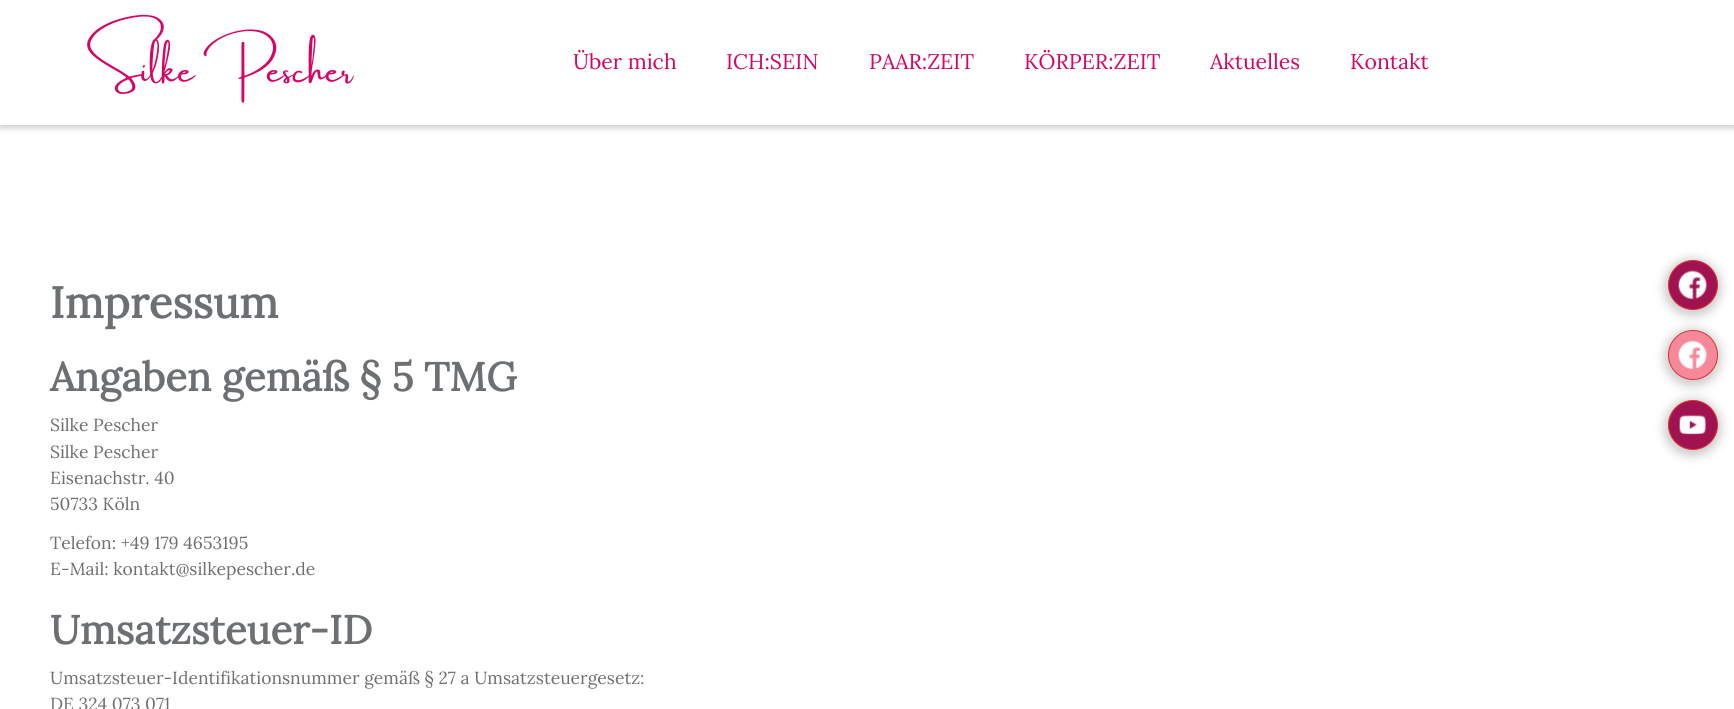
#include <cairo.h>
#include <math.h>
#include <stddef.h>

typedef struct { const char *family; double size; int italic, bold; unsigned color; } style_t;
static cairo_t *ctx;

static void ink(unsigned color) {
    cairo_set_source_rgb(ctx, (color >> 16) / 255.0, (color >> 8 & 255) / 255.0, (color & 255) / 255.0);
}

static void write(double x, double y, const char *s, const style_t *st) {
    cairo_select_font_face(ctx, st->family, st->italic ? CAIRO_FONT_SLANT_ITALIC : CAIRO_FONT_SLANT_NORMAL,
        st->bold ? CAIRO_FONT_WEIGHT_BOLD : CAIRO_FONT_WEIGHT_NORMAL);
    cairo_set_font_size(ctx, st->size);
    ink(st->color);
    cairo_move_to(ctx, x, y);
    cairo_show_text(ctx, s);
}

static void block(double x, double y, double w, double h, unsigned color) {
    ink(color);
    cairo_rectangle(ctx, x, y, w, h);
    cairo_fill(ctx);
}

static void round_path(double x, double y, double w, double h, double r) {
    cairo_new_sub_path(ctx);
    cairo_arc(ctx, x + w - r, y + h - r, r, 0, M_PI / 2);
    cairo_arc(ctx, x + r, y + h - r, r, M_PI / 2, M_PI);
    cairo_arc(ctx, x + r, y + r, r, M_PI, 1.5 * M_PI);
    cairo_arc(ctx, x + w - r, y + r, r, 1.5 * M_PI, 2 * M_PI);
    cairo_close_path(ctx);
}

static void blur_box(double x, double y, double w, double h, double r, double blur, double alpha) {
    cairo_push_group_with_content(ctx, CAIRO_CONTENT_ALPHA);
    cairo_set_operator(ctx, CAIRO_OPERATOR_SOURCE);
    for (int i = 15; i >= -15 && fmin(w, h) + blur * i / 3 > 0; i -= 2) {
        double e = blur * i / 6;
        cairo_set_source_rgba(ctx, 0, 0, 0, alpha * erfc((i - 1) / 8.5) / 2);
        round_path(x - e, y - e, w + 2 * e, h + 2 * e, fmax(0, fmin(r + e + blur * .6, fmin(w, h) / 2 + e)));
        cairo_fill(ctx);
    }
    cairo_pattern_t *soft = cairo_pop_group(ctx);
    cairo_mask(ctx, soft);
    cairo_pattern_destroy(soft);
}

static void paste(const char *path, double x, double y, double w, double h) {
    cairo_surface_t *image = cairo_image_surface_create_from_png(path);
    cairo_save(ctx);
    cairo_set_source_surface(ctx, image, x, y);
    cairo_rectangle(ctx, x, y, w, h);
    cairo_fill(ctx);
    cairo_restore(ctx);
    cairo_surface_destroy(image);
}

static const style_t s1 = {"Lora", 21.25, 0, 0, 0xd60563};
static const style_t s2 = {"Lora", 43.75, 0, 1, 0x6d7073};
static const style_t s3 = {"Lora", 40, 0, 1, 0x6d7073};
static const style_t s4 = {"Lora", 17.5, 0, 0, 0x6d7073};

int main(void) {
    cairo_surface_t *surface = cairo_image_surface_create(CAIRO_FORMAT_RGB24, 1734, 709);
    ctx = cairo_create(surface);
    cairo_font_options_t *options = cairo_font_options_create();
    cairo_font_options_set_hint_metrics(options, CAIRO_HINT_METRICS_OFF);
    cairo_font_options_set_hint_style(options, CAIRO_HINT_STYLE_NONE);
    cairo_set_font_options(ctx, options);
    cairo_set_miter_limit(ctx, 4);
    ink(0xffffff);
    cairo_paint(ctx);
    ink(0x000000);
    blur_box(0, 3, 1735, 125, 0, 3, 0.2);
    block(0, 0, 1734, 125, 0xffffff);
    paste("pic1.png", 87, 14, 267, 89);
    write(573, 69, "Über mich", &s1);
    write(726, 69, "ICH:SEIN", &s1);
    write(869, 69, "PAAR:ZEIT", &s1);
    write(1024, 69, "KÖRPER:ZEIT", &s1);
    write(1210, 69, "Aktuelles", &s1);
    write(1350, 69, "Kontakt", &s1);
    write(50, 318, "Impressum", &s2);
    write(50, 391, "Angaben gemäß § 5 TMG", &s3);
    write(50, 431, "Silke Pescher", &s4);
    write(50, 458, "Silke Pescher", &s4);
    write(50, 484, "Eisenachstr. 40", &s4);
    write(50, 510, "50733 Köln", &s4);
    write(50, 549, "Telefon: +49 179 4653195", &s4);
    write(50, 575, "E-Mail: kontakt@silkepescher.de", &s4);
    write(50, 644, "Umsatzsteuer-ID", &s3);
    write(50, 684, "Umsatzsteuer-Identifikationsnummer gemäß § 27 a Umsatzsteuergesetz:", &s4);
    write(50, 710, "DE 324 073 071", &s4);
    ink(0x000000);
    blur_box(1664, 259, 57, 57, 28.5, 5, 0.2);
    ink(0xa01250);
    cairo_arc(ctx, 1693, 285, 24.5, 0, 2 * M_PI);
    cairo_fill_preserve(ctx);
    ink(0xdd3333);
    cairo_set_line_width(ctx, 1);
    cairo_stroke(ctx);
    paste("pic2.png", 1678, 270, 29, 29);
    ink(0x000000);
    blur_box(1664, 329, 57, 57, 28.5, 5, 0.2);
    ink(0xf6889a);
    cairo_arc(ctx, 1693, 355, 24.5, 0, 2 * M_PI);
    cairo_fill_preserve(ctx);
    ink(0xdd3333);
    cairo_stroke(ctx);
    paste("pic3.png", 1678, 340, 29, 29);
    ink(0x000000);
    blur_box(1664, 399, 57, 57, 28.5, 5, 0.2);
    ink(0xa01250);
    cairo_arc(ctx, 1693, 425, 24.5, 0, 2 * M_PI);
    cairo_fill_preserve(ctx);
    ink(0xdd3333);
    cairo_stroke(ctx);
    paste("pic4.png", 1679, 414, 27, 21);
    cairo_surface_write_to_png(surface, "screenshot.png");
    cairo_font_options_destroy(options);
    cairo_destroy(ctx);
    cairo_surface_destroy(surface);
    return 0;
}
